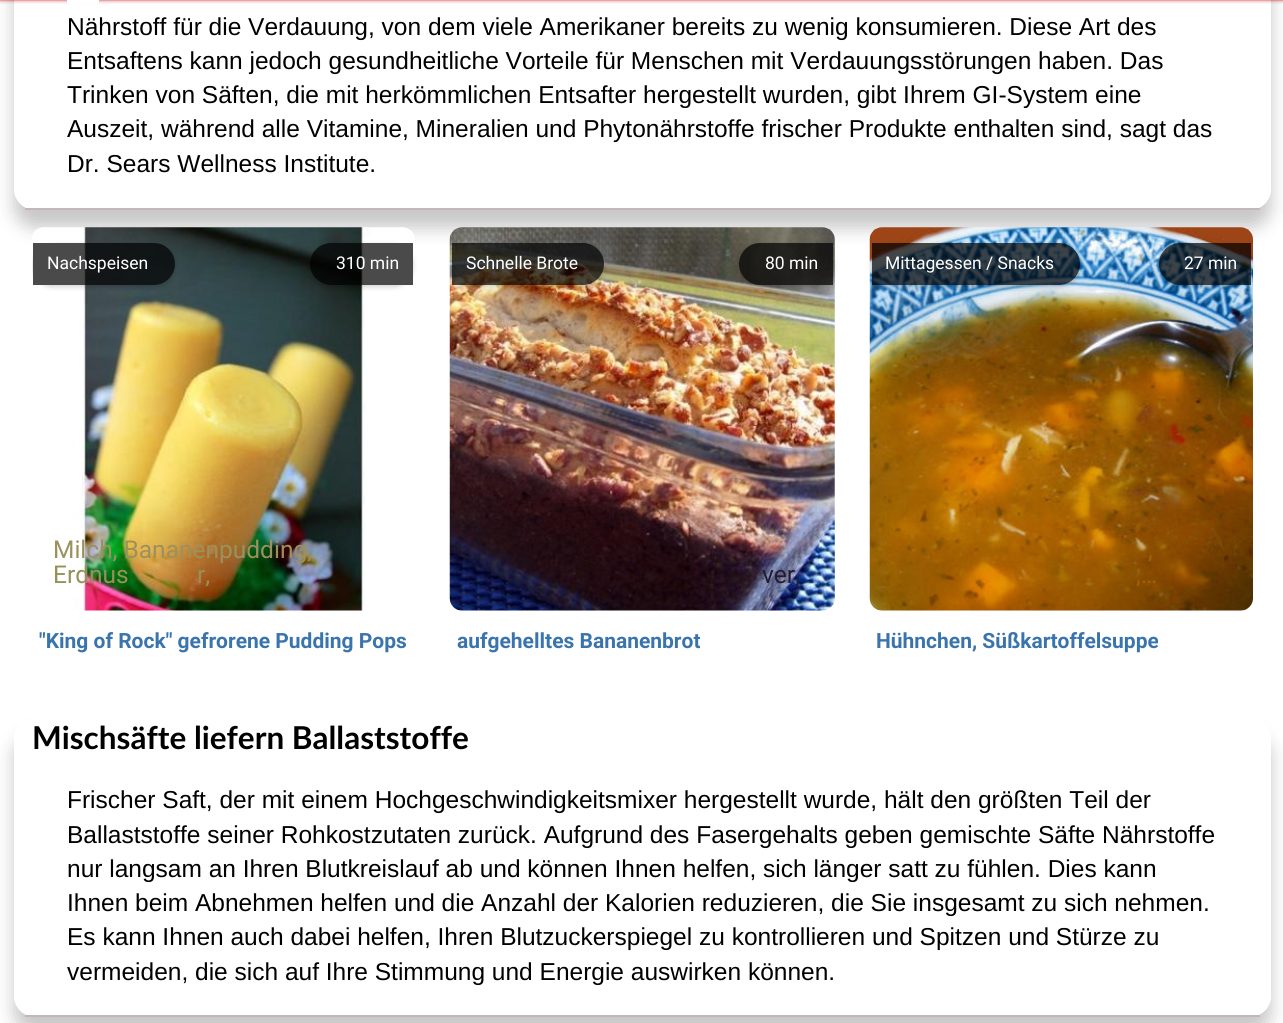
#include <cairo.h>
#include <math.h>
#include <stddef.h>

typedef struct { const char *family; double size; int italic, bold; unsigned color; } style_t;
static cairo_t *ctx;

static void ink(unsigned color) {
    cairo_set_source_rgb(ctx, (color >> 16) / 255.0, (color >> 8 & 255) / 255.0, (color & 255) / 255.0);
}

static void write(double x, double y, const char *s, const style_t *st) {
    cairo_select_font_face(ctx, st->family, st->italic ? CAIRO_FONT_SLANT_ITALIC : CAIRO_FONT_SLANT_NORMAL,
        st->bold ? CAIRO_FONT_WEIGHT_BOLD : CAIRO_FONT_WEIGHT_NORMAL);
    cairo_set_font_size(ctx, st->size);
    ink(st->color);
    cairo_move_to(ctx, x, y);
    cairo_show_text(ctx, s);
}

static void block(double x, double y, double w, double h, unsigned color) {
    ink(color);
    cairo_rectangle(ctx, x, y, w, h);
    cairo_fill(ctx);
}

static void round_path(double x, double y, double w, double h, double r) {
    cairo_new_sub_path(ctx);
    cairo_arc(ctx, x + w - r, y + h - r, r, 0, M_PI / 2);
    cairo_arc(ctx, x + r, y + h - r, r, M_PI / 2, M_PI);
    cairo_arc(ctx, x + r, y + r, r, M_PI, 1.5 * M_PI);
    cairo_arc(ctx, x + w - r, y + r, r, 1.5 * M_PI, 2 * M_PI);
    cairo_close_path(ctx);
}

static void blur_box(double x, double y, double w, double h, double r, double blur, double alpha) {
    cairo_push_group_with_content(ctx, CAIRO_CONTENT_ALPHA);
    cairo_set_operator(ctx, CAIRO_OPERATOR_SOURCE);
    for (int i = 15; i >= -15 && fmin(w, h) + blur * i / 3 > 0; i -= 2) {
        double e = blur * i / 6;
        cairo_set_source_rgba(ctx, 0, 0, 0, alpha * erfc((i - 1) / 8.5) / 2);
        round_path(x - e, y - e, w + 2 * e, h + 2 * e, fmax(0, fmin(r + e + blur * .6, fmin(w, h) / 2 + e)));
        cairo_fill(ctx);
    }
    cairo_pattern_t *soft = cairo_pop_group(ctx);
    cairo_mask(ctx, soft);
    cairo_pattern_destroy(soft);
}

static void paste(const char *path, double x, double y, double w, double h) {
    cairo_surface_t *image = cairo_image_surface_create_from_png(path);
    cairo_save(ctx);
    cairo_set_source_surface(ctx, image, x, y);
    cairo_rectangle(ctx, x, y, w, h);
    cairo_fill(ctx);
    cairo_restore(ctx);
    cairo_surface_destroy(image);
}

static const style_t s1 = {"Liberation Sans", 24.5, 0, 0, 0x000000};
static const style_t s2 = {"Roboto", 17.5, 0, 0, 0xffffff};
static const style_t s3 = {"Roboto", 24.5, 0, 0, 0x9c905d};
static const style_t s4 = {"Roboto", 24.5, 0, 0, 0x959157};
static const style_t s5 = {"Roboto", 21, 0, 1, 0x3a74ad};
static const style_t s6 = {"Roboto", 24.5, 0, 0, 0x271a2d};
static const style_t s7 = {"Roboto", 24.5, 0, 0, 0xa46103};
static const style_t s8 = {"Lato", 31.5, 0, 1, 0x000000};

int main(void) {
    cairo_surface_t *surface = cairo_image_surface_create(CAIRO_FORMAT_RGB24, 1283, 1023);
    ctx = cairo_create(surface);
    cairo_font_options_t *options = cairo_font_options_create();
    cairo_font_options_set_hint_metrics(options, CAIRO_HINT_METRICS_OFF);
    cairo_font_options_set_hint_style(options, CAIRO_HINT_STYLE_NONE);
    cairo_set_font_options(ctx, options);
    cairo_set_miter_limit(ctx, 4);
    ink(0xffffff);
    cairo_paint(ctx);
    ink(0xcc2424);
    blur_box(0, -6, 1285, 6, 0, 2, 1);
    cairo_save(ctx);
    cairo_set_fill_rule(ctx, CAIRO_FILL_RULE_EVEN_ODD);
    cairo_new_path(ctx);
    cairo_move_to(ctx, 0, 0);
    cairo_line_to(ctx, 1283, 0);
    cairo_line_to(ctx, 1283, 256);
    cairo_line_to(ctx, 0, 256);
    cairo_close_path(ctx);
    cairo_move_to(ctx, 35, -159);
    cairo_line_to(ctx, 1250, -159);
    cairo_curve_to(ctx, 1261.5, -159, 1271, -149.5, 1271, -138);
    cairo_line_to(ctx, 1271, 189);
    cairo_curve_to(ctx, 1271, 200.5, 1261.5, 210, 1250, 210);
    cairo_line_to(ctx, 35, 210);
    cairo_curve_to(ctx, 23.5, 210, 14, 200.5, 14, 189);
    cairo_line_to(ctx, 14, -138);
    cairo_curve_to(ctx, 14, -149.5, 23.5, -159, 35, -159);
    cairo_close_path(ctx);
    cairo_clip(ctx);
    ink(0x000000);
    blur_box(14, -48, 1257, 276, 21, 9, 0.22);
    cairo_restore(ctx);
    block(67, 0, 32, 4, 0xffffff);
    block(25, 208, 1235, 2, 0xc5b7b7);
    write(67, 35, "Nährstoff für die Verdauung, von dem viele Amerikaner bereits zu wenig konsumieren. Diese Art des", &s1);
    write(67, 69, "Entsaftens kann jedoch gesundheitliche Vorteile für Menschen mit Verdauungsstörungen haben. Das", &s1);
    write(67, 103, "Trinken von Säften, die mit herkömmlichen Entsafter hergestellt wurden, gibt Ihrem GI-System eine", &s1);
    write(67, 137, "Auszeit, während alle Vitamine, Mineralien und Phytonährstoffe frischer Produkte enthalten sind, sagt das", &s1);
    write(67, 172, "Dr. Sears Wellness Institute.", &s1);
    paste("pic1.png", 32, 227, 383, 384);
    cairo_save(ctx);
    round_path(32, 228, 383, 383, 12);
    cairo_clip(ctx);
    cairo_set_fill_rule(ctx, CAIRO_FILL_RULE_EVEN_ODD);
    cairo_new_path(ctx);
    cairo_move_to(ctx, 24, 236);
    cairo_line_to(ctx, 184, 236);
    cairo_line_to(ctx, 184, 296);
    cairo_line_to(ctx, 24, 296);
    cairo_close_path(ctx);
    cairo_move_to(ctx, 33, 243);
    cairo_line_to(ctx, 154, 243);
    cairo_curve_to(ctx, 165.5, 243, 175, 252.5, 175, 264);
    cairo_curve_to(ctx, 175, 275.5, 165.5, 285, 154, 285);
    cairo_line_to(ctx, 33, 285);
    cairo_close_path(ctx);
    cairo_clip(ctx);
    ink(0x000000);
    blur_box(33, 245, 142, 42, 21, 2.5, 0.18);
    cairo_restore(ctx);
    cairo_set_source_rgba(ctx, 0, 0, 0, 0.71);
    cairo_new_path(ctx);
    cairo_move_to(ctx, 33, 243);
    cairo_line_to(ctx, 154, 243);
    cairo_curve_to(ctx, 165.5, 243, 175, 252.5, 175, 264);
    cairo_curve_to(ctx, 175, 275.5, 165.5, 285, 154, 285);
    cairo_line_to(ctx, 33, 285);
    cairo_close_path(ctx);
    cairo_fill(ctx);
    write(47, 269, "Nachspeisen", &s2);
    cairo_save(ctx);
    cairo_set_fill_rule(ctx, CAIRO_FILL_RULE_EVEN_ODD);
    cairo_new_path(ctx);
    cairo_move_to(ctx, 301, 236);
    cairo_line_to(ctx, 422, 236);
    cairo_line_to(ctx, 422, 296);
    cairo_line_to(ctx, 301, 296);
    cairo_close_path(ctx);
    cairo_move_to(ctx, 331, 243);
    cairo_line_to(ctx, 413, 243);
    cairo_line_to(ctx, 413, 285);
    cairo_line_to(ctx, 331, 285);
    cairo_curve_to(ctx, 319.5, 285, 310, 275.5, 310, 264);
    cairo_curve_to(ctx, 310, 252.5, 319.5, 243, 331, 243);
    cairo_close_path(ctx);
    cairo_clip(ctx);
    ink(0x000000);
    blur_box(310, 245, 103, 42, 21, 2.5, 0.18);
    cairo_restore(ctx);
    cairo_set_source_rgba(ctx, 0, 0, 0, 0.71);
    cairo_new_path(ctx);
    cairo_move_to(ctx, 331, 243);
    cairo_line_to(ctx, 413, 243);
    cairo_line_to(ctx, 413, 285);
    cairo_line_to(ctx, 331, 285);
    cairo_curve_to(ctx, 319.5, 285, 310, 275.5, 310, 264);
    cairo_curve_to(ctx, 310, 252.5, 319.5, 243, 331, 243);
    cairo_close_path(ctx);
    cairo_fill(ctx);
    write(336, 269, "310 min", &s2);
    write(53, 558, "Milch, Bananenpudding,", &s3);
    write(53, 583, "Erdnus", &s4);
    write(197, 583, "r,", &s4);
    write(39, 648, "\"King of Rock\" gefrorene Pudding Pops", &s5);
    paste("pic2.png", 449, 227, 386, 384);
    cairo_save(ctx);
    cairo_set_fill_rule(ctx, CAIRO_FILL_RULE_EVEN_ODD);
    cairo_new_path(ctx);
    cairo_move_to(ctx, 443, 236);
    cairo_line_to(ctx, 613, 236);
    cairo_line_to(ctx, 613, 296);
    cairo_line_to(ctx, 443, 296);
    cairo_close_path(ctx);
    cairo_move_to(ctx, 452, 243);
    cairo_line_to(ctx, 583, 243);
    cairo_curve_to(ctx, 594.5, 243, 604, 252.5, 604, 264);
    cairo_curve_to(ctx, 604, 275.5, 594.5, 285, 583, 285);
    cairo_line_to(ctx, 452, 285);
    cairo_close_path(ctx);
    cairo_clip(ctx);
    ink(0x000000);
    blur_box(452, 245, 152, 42, 21, 2.5, 0.18);
    cairo_restore(ctx);
    cairo_set_source_rgba(ctx, 0, 0, 0, 0.71);
    cairo_new_path(ctx);
    cairo_move_to(ctx, 452, 243);
    cairo_line_to(ctx, 583, 243);
    cairo_curve_to(ctx, 594.5, 243, 604, 252.5, 604, 264);
    cairo_curve_to(ctx, 604, 275.5, 594.5, 285, 583, 285);
    cairo_line_to(ctx, 452, 285);
    cairo_close_path(ctx);
    cairo_fill(ctx);
    write(466, 269, "Schnelle Brote", &s2);
    cairo_save(ctx);
    cairo_set_fill_rule(ctx, CAIRO_FILL_RULE_EVEN_ODD);
    cairo_new_path(ctx);
    cairo_move_to(ctx, 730, 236);
    cairo_line_to(ctx, 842, 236);
    cairo_line_to(ctx, 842, 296);
    cairo_line_to(ctx, 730, 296);
    cairo_close_path(ctx);
    cairo_move_to(ctx, 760, 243);
    cairo_line_to(ctx, 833, 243);
    cairo_line_to(ctx, 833, 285);
    cairo_line_to(ctx, 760, 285);
    cairo_curve_to(ctx, 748.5, 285, 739, 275.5, 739, 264);
    cairo_curve_to(ctx, 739, 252.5, 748.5, 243, 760, 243);
    cairo_close_path(ctx);
    cairo_clip(ctx);
    ink(0x000000);
    blur_box(739, 245, 94, 42, 21, 2.5, 0.18);
    cairo_restore(ctx);
    cairo_set_source_rgba(ctx, 0, 0, 0, 0.71);
    cairo_new_path(ctx);
    cairo_move_to(ctx, 760, 243);
    cairo_line_to(ctx, 833, 243);
    cairo_line_to(ctx, 833, 285);
    cairo_line_to(ctx, 760, 285);
    cairo_curve_to(ctx, 748.5, 285, 739, 275.5, 739, 264);
    cairo_curve_to(ctx, 739, 252.5, 748.5, 243, 760, 243);
    cairo_close_path(ctx);
    cairo_fill(ctx);
    write(765, 269, "80 min", &s2);
    write(762, 583, "ver,", &s6);
    write(457, 648, "aufgehelltes Bananenbrot", &s5);
    paste("pic3.png", 869, 227, 384, 384);
    cairo_save(ctx);
    cairo_set_fill_rule(ctx, CAIRO_FILL_RULE_EVEN_ODD);
    cairo_new_path(ctx);
    cairo_move_to(ctx, 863, 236);
    cairo_line_to(ctx, 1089, 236);
    cairo_line_to(ctx, 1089, 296);
    cairo_line_to(ctx, 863, 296);
    cairo_close_path(ctx);
    cairo_move_to(ctx, 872, 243);
    cairo_line_to(ctx, 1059, 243);
    cairo_curve_to(ctx, 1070.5, 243, 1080, 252.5, 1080, 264);
    cairo_curve_to(ctx, 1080, 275.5, 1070.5, 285, 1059, 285);
    cairo_line_to(ctx, 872, 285);
    cairo_close_path(ctx);
    cairo_clip(ctx);
    ink(0x000000);
    blur_box(872, 245, 208, 42, 21, 2.5, 0.18);
    cairo_restore(ctx);
    cairo_set_source_rgba(ctx, 0, 0, 0, 0.71);
    cairo_new_path(ctx);
    cairo_move_to(ctx, 872, 243);
    cairo_line_to(ctx, 1059, 243);
    cairo_curve_to(ctx, 1070.5, 243, 1080, 252.5, 1080, 264);
    cairo_curve_to(ctx, 1080, 275.5, 1070.5, 285, 1059, 285);
    cairo_line_to(ctx, 872, 285);
    cairo_close_path(ctx);
    cairo_fill(ctx);
    write(885, 269, "Mittagessen / Snacks", &s2);
    cairo_save(ctx);
    cairo_set_fill_rule(ctx, CAIRO_FILL_RULE_EVEN_ODD);
    cairo_new_path(ctx);
    cairo_move_to(ctx, 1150, 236);
    cairo_line_to(ctx, 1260, 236);
    cairo_line_to(ctx, 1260, 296);
    cairo_line_to(ctx, 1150, 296);
    cairo_close_path(ctx);
    cairo_move_to(ctx, 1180, 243);
    cairo_line_to(ctx, 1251, 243);
    cairo_line_to(ctx, 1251, 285);
    cairo_line_to(ctx, 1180, 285);
    cairo_curve_to(ctx, 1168.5, 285, 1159, 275.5, 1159, 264);
    cairo_curve_to(ctx, 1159, 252.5, 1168.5, 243, 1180, 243);
    cairo_close_path(ctx);
    cairo_clip(ctx);
    ink(0x000000);
    blur_box(1159, 245, 92, 42, 21, 2.5, 0.18);
    cairo_restore(ctx);
    cairo_set_source_rgba(ctx, 0, 0, 0, 0.71);
    cairo_new_path(ctx);
    cairo_move_to(ctx, 1180, 243);
    cairo_line_to(ctx, 1251, 243);
    cairo_line_to(ctx, 1251, 285);
    cairo_line_to(ctx, 1180, 285);
    cairo_curve_to(ctx, 1168.5, 285, 1159, 275.5, 1159, 264);
    cairo_curve_to(ctx, 1159, 252.5, 1168.5, 243, 1180, 243);
    cairo_close_path(ctx);
    cairo_fill(ctx);
    write(1184, 269, "27 min", &s2);
    write(1148, 558, ",", &s7);
    write(1136, 583, ",…", &s7);
    write(876, 648, "Hühnchen, Süßkartoffelsuppe", &s5);
    cairo_save(ctx);
    cairo_set_fill_rule(ctx, CAIRO_FILL_RULE_EVEN_ODD);
    cairo_new_path(ctx);
    cairo_move_to(ctx, 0, 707);
    cairo_line_to(ctx, 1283, 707);
    cairo_line_to(ctx, 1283, 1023);
    cairo_line_to(ctx, 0, 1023);
    cairo_close_path(ctx);
    cairo_move_to(ctx, 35, 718);
    cairo_line_to(ctx, 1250, 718);
    cairo_curve_to(ctx, 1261.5, 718, 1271, 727.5, 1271, 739);
    cairo_line_to(ctx, 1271, 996);
    cairo_curve_to(ctx, 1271, 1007.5, 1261.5, 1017, 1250, 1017);
    cairo_line_to(ctx, 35, 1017);
    cairo_curve_to(ctx, 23.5, 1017, 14, 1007.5, 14, 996);
    cairo_line_to(ctx, 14, 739);
    cairo_curve_to(ctx, 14, 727.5, 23.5, 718, 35, 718);
    cairo_close_path(ctx);
    cairo_clip(ctx);
    ink(0x000000);
    blur_box(14, 735, 1257, 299, 21, 9, 0.22);
    cairo_restore(ctx);
    block(25, 1015, 1235, 2, 0xc5b7b7);
    write(32, 749, "Mischsäfte liefern Ballaststoffe", &s8);
    write(67, 808, "Frischer Saft, der mit einem Hochgeschwindigkeitsmixer hergestellt wurde, hält den größten Teil der", &s1);
    write(67, 843, "Ballaststoffe seiner Rohkostzutaten zurück. Aufgrund des Fasergehalts geben gemischte Säfte Nährstoffe", &s1);
    write(67, 877, "nur langsam an Ihren Blutkreislauf ab und können Ihnen helfen, sich länger satt zu fühlen. Dies kann", &s1);
    write(67, 911, "Ihnen beim Abnehmen helfen und die Anzahl der Kalorien reduzieren, die Sie insgesamt zu sich nehmen.", &s1);
    write(67, 945, "Es kann Ihnen auch dabei helfen, Ihren Blutzuckerspiegel zu kontrollieren und Spitzen und Stürze zu", &s1);
    write(67, 980, "vermeiden, die sich auf Ihre Stimmung und Energie auswirken können.", &s1);
    cairo_surface_write_to_png(surface, "screenshot.png");
    cairo_font_options_destroy(options);
    cairo_destroy(ctx);
    cairo_surface_destroy(surface);
    return 0;
}
